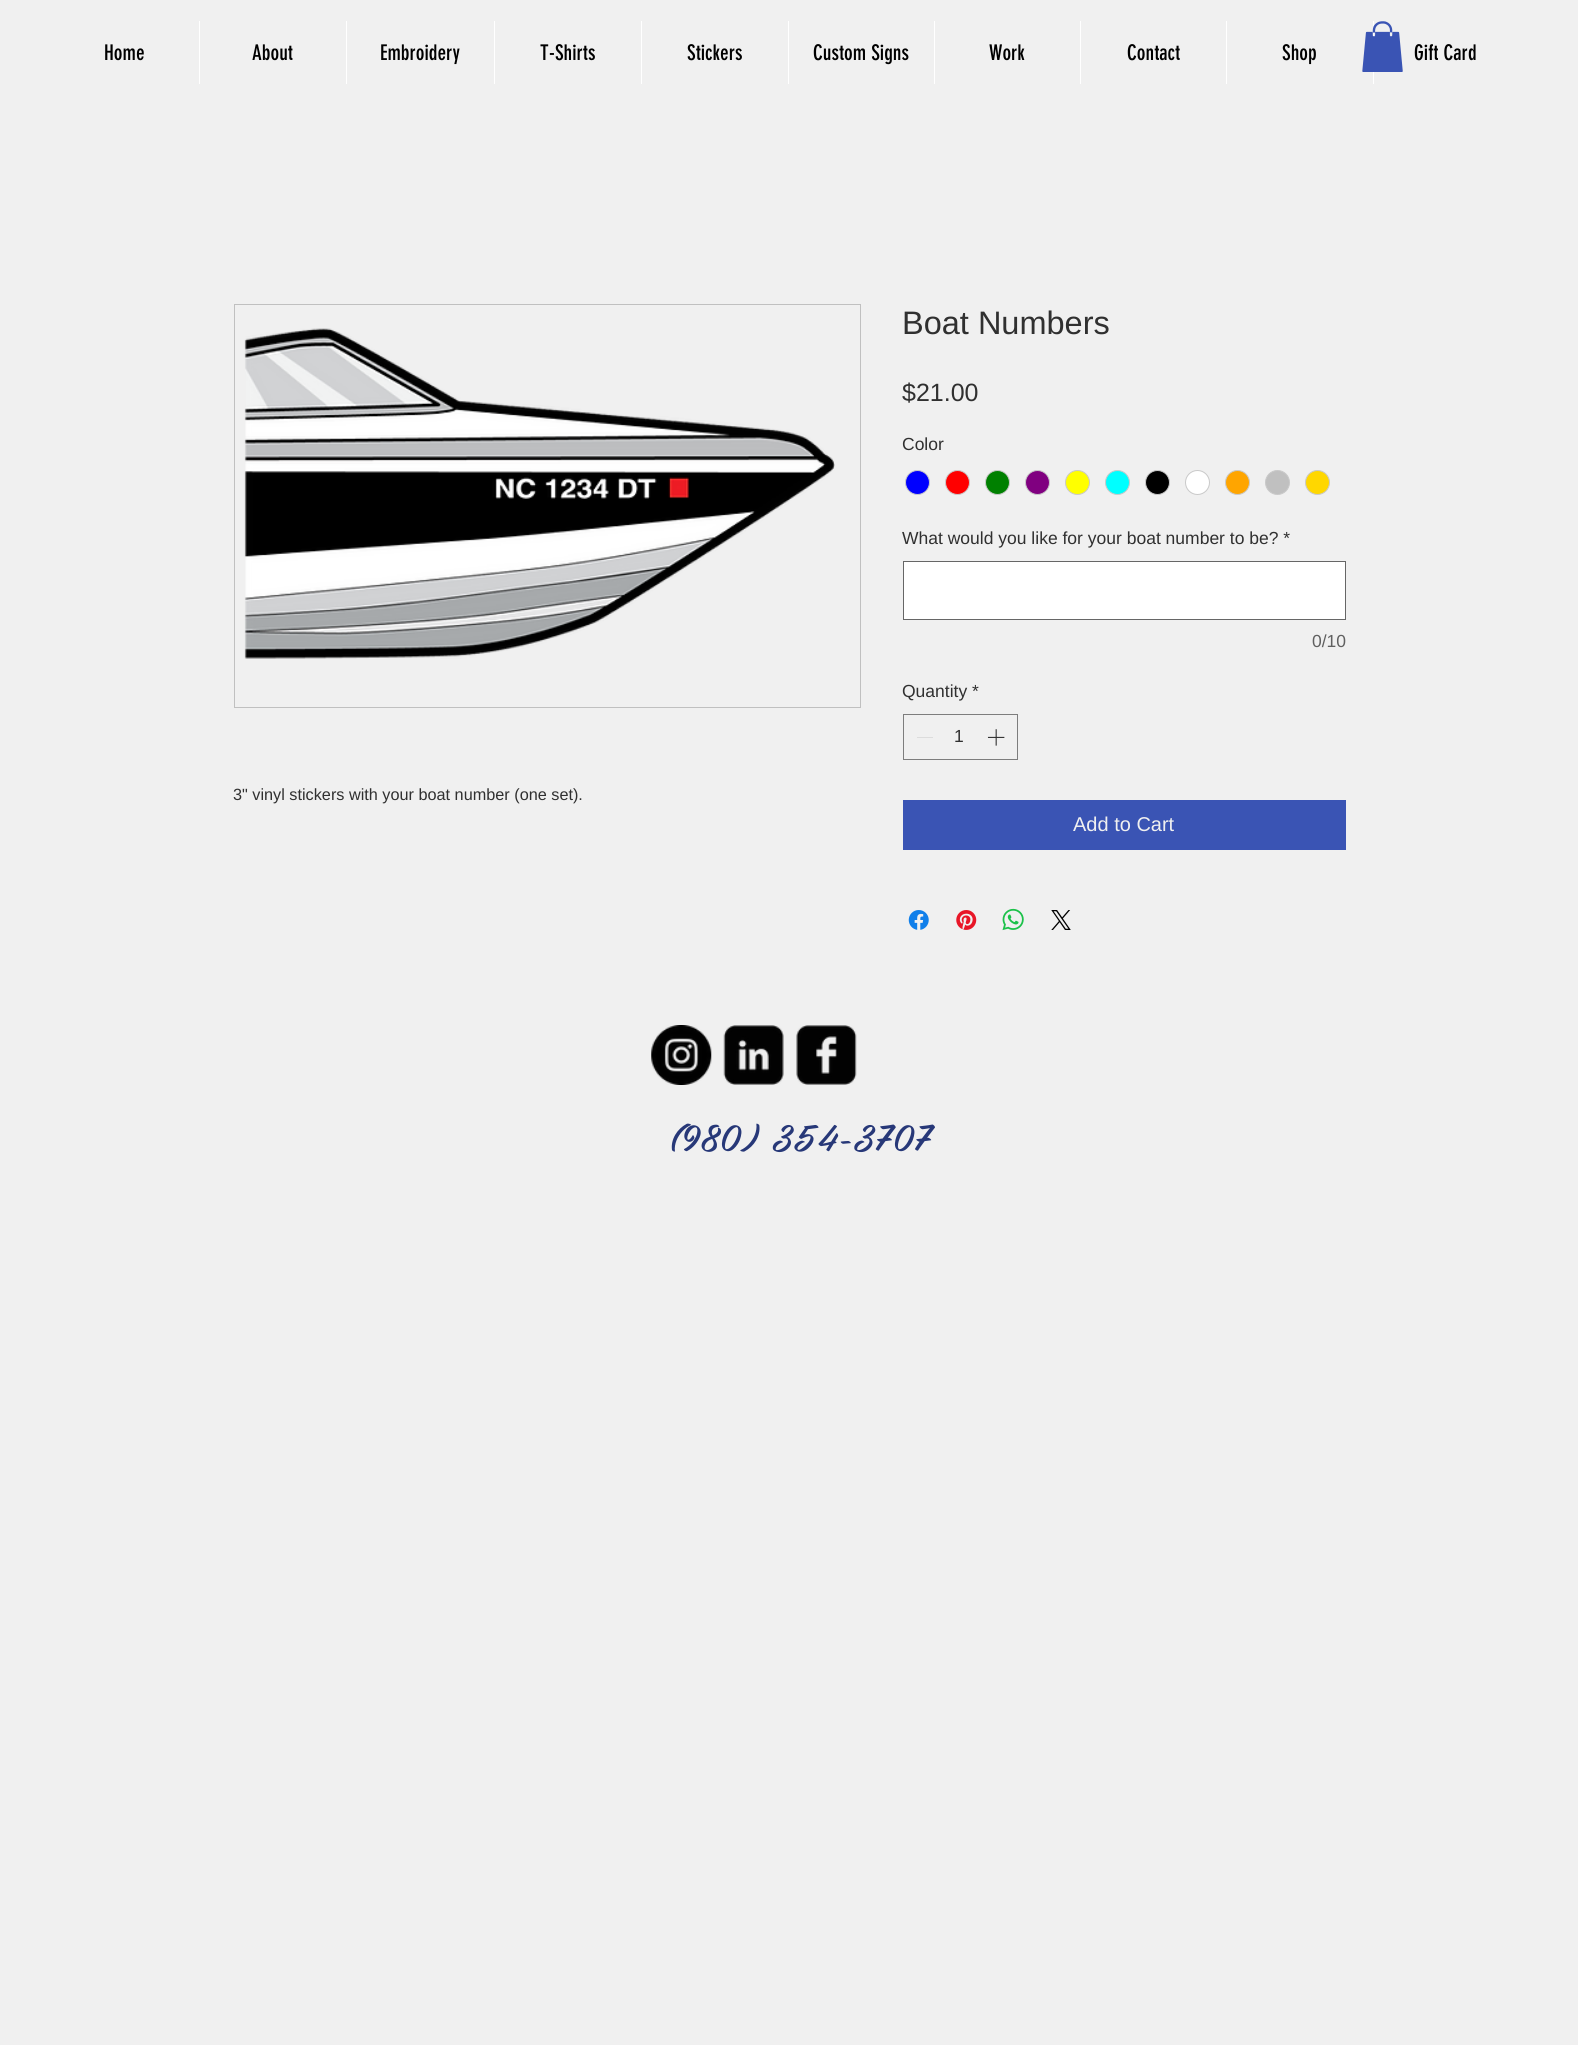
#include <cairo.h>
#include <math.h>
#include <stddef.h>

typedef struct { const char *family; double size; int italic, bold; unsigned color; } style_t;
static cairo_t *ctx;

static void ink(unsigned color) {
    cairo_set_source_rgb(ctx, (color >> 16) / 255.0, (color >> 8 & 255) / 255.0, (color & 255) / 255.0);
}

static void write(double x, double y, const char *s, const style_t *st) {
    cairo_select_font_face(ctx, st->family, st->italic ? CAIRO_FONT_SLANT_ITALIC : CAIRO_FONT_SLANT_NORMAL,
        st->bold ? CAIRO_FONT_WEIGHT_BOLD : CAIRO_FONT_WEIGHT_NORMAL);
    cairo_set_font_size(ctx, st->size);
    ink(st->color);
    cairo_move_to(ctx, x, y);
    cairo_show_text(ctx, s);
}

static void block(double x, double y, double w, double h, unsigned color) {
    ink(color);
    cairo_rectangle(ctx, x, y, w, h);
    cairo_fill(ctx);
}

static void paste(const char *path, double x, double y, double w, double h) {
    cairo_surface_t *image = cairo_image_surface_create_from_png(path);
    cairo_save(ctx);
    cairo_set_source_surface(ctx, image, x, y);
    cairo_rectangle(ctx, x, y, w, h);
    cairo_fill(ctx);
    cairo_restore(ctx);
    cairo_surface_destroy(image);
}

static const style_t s1 = {"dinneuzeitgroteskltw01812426", 21.25, 0, 0, 0x000000};
static const style_t s2 = {"Liberation Sans", 16.25, 0, 0, 0x303030};
static const style_t s3 = {"Liberation Sans", 32.5, 0, 0, 0x303030};
static const style_t s4 = {"Liberation Sans", 25, 0, 0, 0x303030};
static const style_t s5 = {"Liberation Sans", 17.5, 0, 0, 0x303030};
static const style_t s6 = {"Liberation Sans", 17.5, 0, 0, 0x606060};
static const style_t s7 = {"Liberation Sans", 20, 0, 0, 0xf0f0f0};
static const style_t s8 = {"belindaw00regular", 33.75, 0, 0, 0x273878};

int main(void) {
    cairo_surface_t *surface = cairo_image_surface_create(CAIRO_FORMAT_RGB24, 1578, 2045);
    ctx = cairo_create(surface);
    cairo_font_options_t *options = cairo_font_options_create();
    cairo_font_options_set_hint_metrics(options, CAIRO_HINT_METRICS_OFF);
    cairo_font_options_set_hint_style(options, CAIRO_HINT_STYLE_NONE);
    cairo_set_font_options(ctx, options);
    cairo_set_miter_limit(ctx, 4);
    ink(0xf0f0f0);
    cairo_paint(ctx);
    block(1373, 21, 1, 63, 0xffffff);
    paste("pic1.png", 1362, 21, 41, 51);
    write(104, 60, "Home", &s1);
    block(199, 21, 1, 63, 0xffffff);
    write(252, 60, "About", &s1);
    block(346, 21, 1, 63, 0xffffff);
    write(380, 60, "Embroidery", &s1);
    block(494, 21, 1, 63, 0xffffff);
    write(540, 60, "T-Shirts", &s1);
    block(641, 21, 1, 63, 0xffffff);
    write(687, 60, "Stickers", &s1);
    block(788, 21, 1, 63, 0xffffff);
    write(813, 60, "Custom Signs", &s1);
    block(934, 21, 1, 63, 0xffffff);
    write(989, 60, "Work", &s1);
    block(1080, 21, 1, 63, 0xffffff);
    write(1127, 60, "Contact", &s1);
    block(1226, 21, 1, 63, 0xffffff);
    write(1282, 60, "Shop", &s1);
    write(1414, 60, "Gift Card", &s1);
    cairo_rectangle(ctx, 234.5, 304.5, 626, 403);
    ink(0xc0c0c0);
    cairo_set_line_width(ctx, 1);
    cairo_stroke(ctx);
    paste("pic2.png", 244, 328, 591, 331);
    write(233, 800, "3\" vinyl stickers with your boat number (one set).", &s2);
    write(902, 334, "Boat Numbers", &s3);
    write(902, 401, "$21.00", &s4);
    write(902, 450, "Color", &s5);
    ink(0x0000ff);
    cairo_new_path(ctx);
    cairo_arc(ctx, 917.5, 482.5, 12, 0, 2 * M_PI);
    cairo_fill_preserve(ctx);
    ink(0xc9c9c9);
    cairo_stroke(ctx);
    ink(0xff0000);
    cairo_arc(ctx, 957.5, 482.5, 12, 0, 2 * M_PI);
    cairo_fill_preserve(ctx);
    ink(0xc9c9c9);
    cairo_stroke(ctx);
    ink(0x008000);
    cairo_arc(ctx, 997.5, 482.5, 12, 0, 2 * M_PI);
    cairo_fill_preserve(ctx);
    ink(0xc9c9c9);
    cairo_stroke(ctx);
    ink(0x800080);
    cairo_arc(ctx, 1037.5, 482.5, 12, 0, 2 * M_PI);
    cairo_fill_preserve(ctx);
    ink(0xc9c9c9);
    cairo_stroke(ctx);
    ink(0xffff00);
    cairo_arc(ctx, 1077.5, 482.5, 12, 0, 2 * M_PI);
    cairo_fill_preserve(ctx);
    ink(0xc9c9c9);
    cairo_stroke(ctx);
    ink(0x00ffff);
    cairo_arc(ctx, 1117.5, 482.5, 12, 0, 2 * M_PI);
    cairo_fill_preserve(ctx);
    ink(0xc9c9c9);
    cairo_stroke(ctx);
    ink(0x000000);
    cairo_arc(ctx, 1157.5, 482.5, 12, 0, 2 * M_PI);
    cairo_fill_preserve(ctx);
    ink(0xc9c9c9);
    cairo_stroke(ctx);
    ink(0xffffff);
    cairo_arc(ctx, 1197.5, 482.5, 12, 0, 2 * M_PI);
    cairo_fill_preserve(ctx);
    ink(0xc9c9c9);
    cairo_stroke(ctx);
    ink(0xffa500);
    cairo_arc(ctx, 1237.5, 482.5, 12, 0, 2 * M_PI);
    cairo_fill_preserve(ctx);
    ink(0xc9c9c9);
    cairo_stroke(ctx);
    ink(0xc0c0c0);
    cairo_arc(ctx, 1277.5, 482.5, 12, 0, 2 * M_PI);
    cairo_fill_preserve(ctx);
    ink(0xc9c9c9);
    cairo_stroke(ctx);
    ink(0xffd700);
    cairo_arc(ctx, 1317.5, 482.5, 12, 0, 2 * M_PI);
    cairo_fill_preserve(ctx);
    ink(0xc9c9c9);
    cairo_stroke(ctx);
    write(902, 544, "What would you like for your boat number to be? *", &s5);
    ink(0xffffff);
    cairo_rectangle(ctx, 903.5, 561.5, 442, 58);
    cairo_fill_preserve(ctx);
    ink(0x666666);
    cairo_stroke(ctx);
    write(1312, 647, "0/10", &s6);
    write(902, 697, "Quantity *", &s5);
    cairo_rectangle(ctx, 903.5, 714.5, 114, 45);
    ink(0x7d7d7d);
    cairo_stroke(ctx);
    block(917, 737, 16, 1, 0xdcdcdc);
    write(954, 742, "1", &s5);
    paste("pic3.png", 987, 729, 18, 17);
    block(903, 800, 443, 50, 0x3a54b4);
    write(1073, 831, "Add to Cart", &s7);
    paste("pic4.png", 908, 910, 21, 20);
    paste("pic5.png", 956, 910, 21, 20);
    paste("pic6.png", 1002, 908, 22, 23);
    paste("pic7.png", 1051, 910, 20, 20);
    paste("pic8.png", 651, 1025, 61, 60);
    paste("pic9.png", 723, 1025, 61, 60);
    paste("pic10.png", 796, 1025, 61, 60);
    write(671, 1149, "(980) 354-3707", &s8);
    cairo_surface_write_to_png(surface, "screenshot.png");
    cairo_font_options_destroy(options);
    cairo_destroy(ctx);
    cairo_surface_destroy(surface);
    return 0;
}
